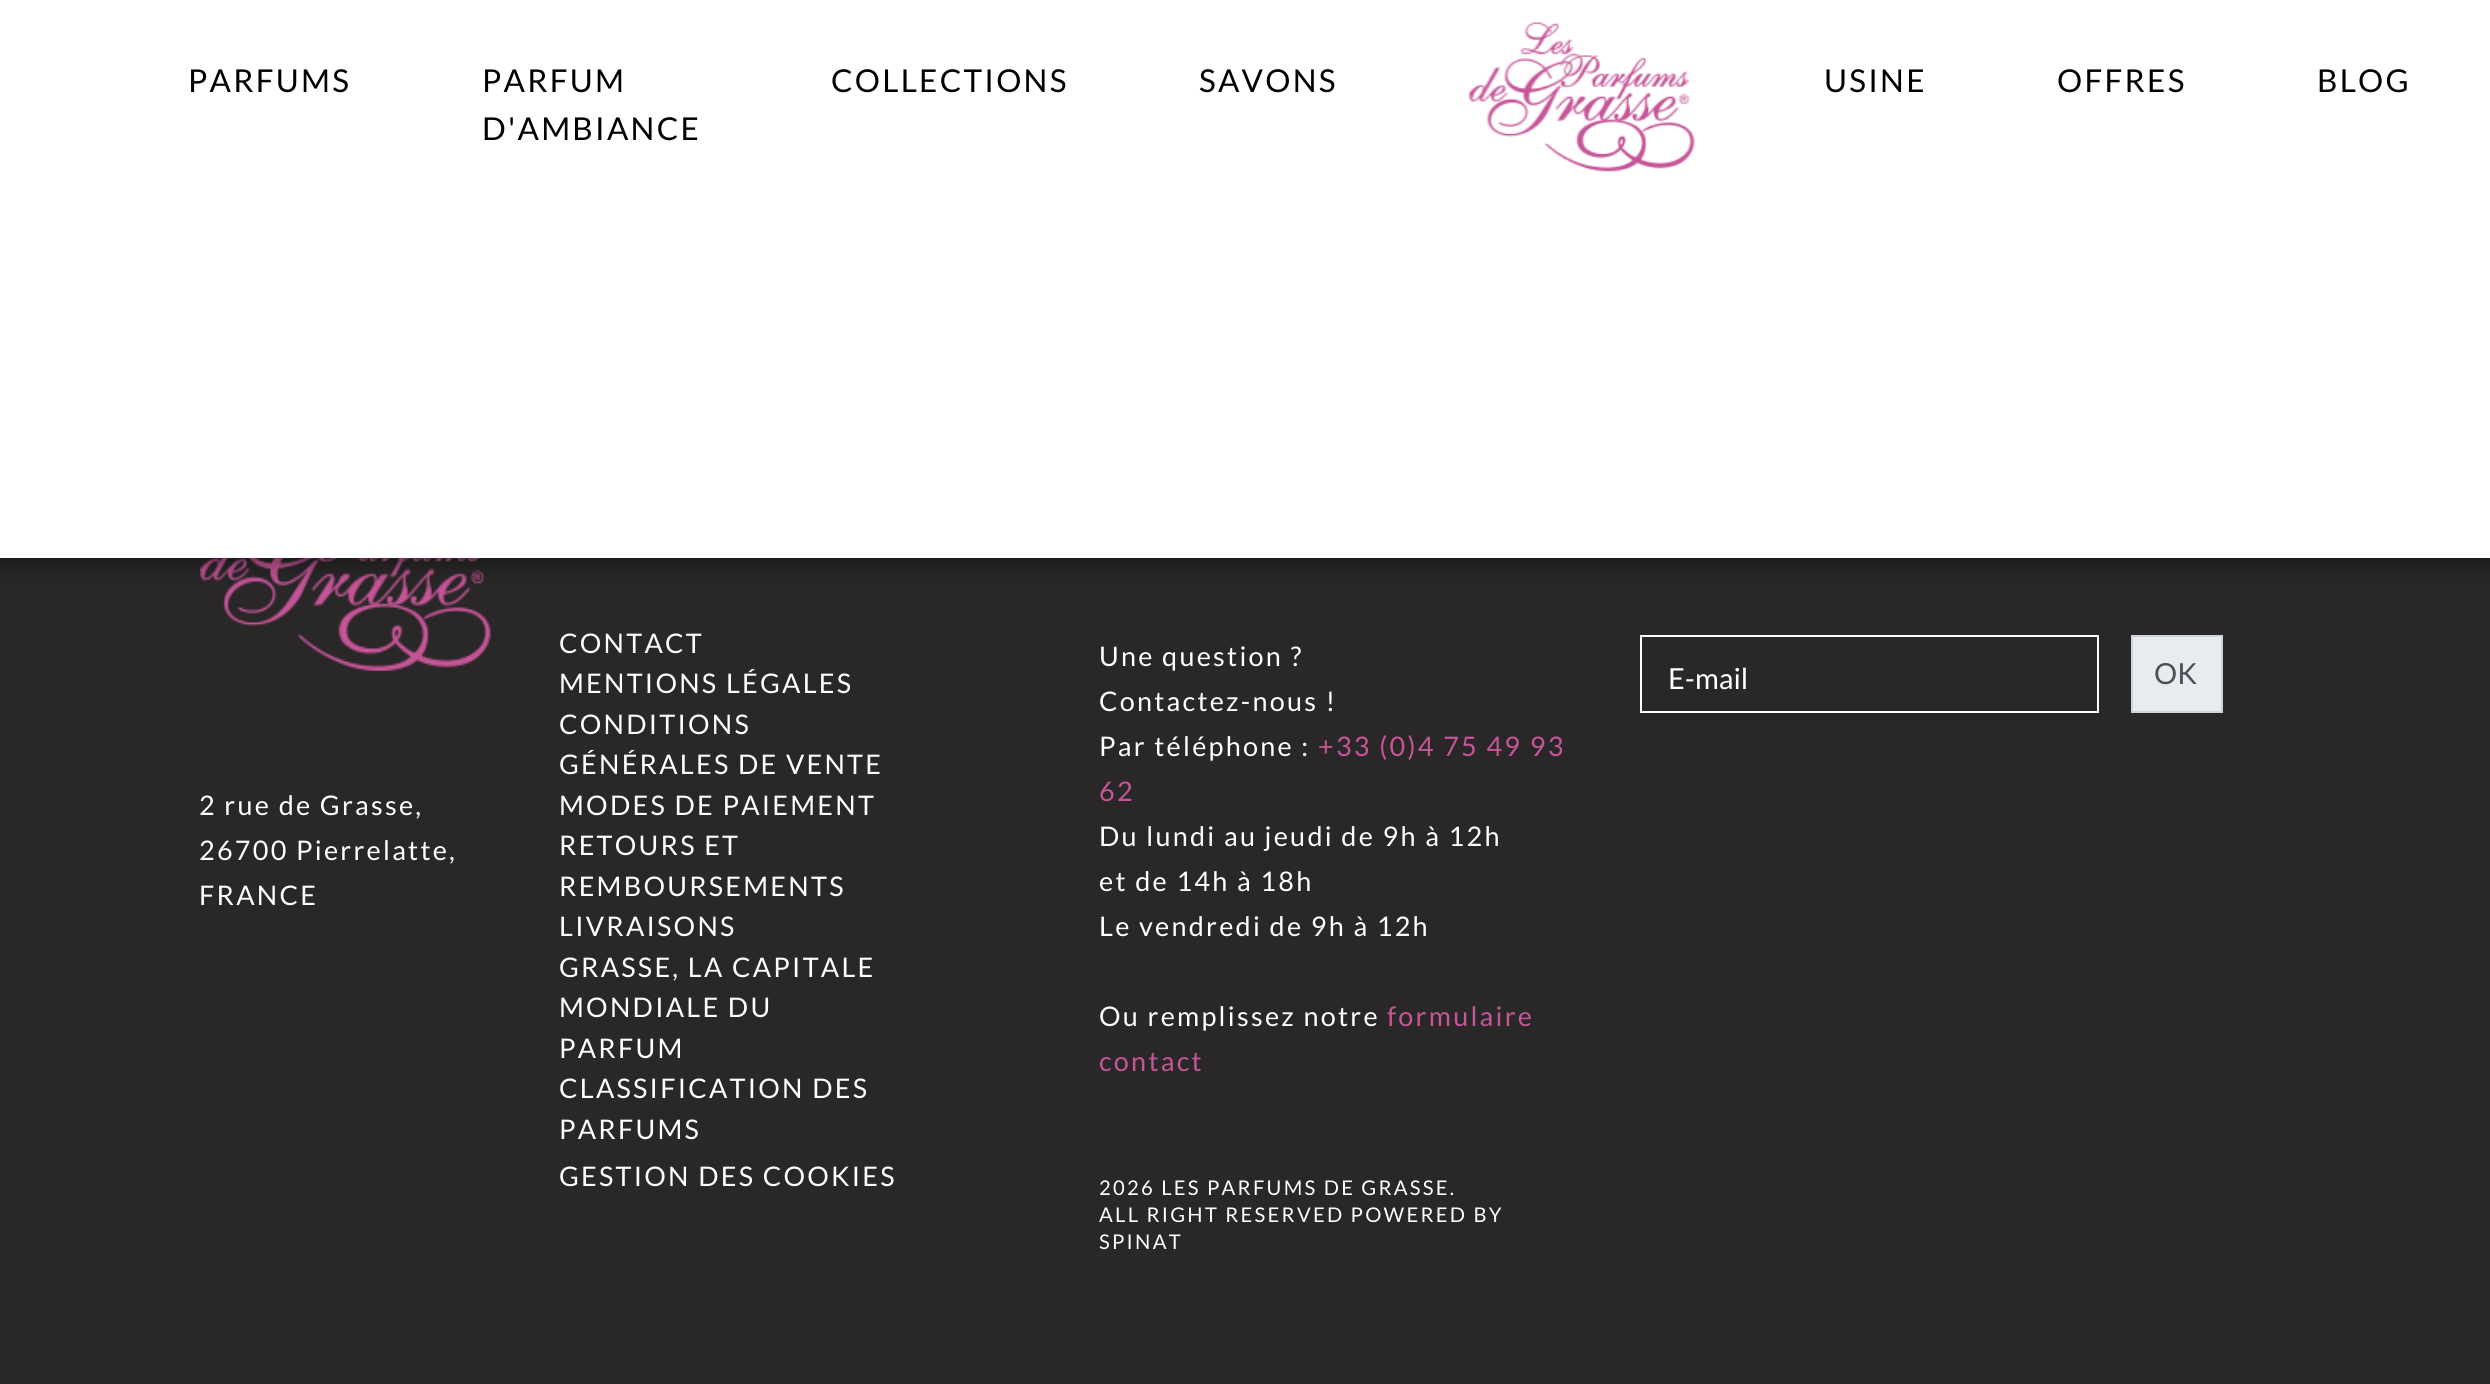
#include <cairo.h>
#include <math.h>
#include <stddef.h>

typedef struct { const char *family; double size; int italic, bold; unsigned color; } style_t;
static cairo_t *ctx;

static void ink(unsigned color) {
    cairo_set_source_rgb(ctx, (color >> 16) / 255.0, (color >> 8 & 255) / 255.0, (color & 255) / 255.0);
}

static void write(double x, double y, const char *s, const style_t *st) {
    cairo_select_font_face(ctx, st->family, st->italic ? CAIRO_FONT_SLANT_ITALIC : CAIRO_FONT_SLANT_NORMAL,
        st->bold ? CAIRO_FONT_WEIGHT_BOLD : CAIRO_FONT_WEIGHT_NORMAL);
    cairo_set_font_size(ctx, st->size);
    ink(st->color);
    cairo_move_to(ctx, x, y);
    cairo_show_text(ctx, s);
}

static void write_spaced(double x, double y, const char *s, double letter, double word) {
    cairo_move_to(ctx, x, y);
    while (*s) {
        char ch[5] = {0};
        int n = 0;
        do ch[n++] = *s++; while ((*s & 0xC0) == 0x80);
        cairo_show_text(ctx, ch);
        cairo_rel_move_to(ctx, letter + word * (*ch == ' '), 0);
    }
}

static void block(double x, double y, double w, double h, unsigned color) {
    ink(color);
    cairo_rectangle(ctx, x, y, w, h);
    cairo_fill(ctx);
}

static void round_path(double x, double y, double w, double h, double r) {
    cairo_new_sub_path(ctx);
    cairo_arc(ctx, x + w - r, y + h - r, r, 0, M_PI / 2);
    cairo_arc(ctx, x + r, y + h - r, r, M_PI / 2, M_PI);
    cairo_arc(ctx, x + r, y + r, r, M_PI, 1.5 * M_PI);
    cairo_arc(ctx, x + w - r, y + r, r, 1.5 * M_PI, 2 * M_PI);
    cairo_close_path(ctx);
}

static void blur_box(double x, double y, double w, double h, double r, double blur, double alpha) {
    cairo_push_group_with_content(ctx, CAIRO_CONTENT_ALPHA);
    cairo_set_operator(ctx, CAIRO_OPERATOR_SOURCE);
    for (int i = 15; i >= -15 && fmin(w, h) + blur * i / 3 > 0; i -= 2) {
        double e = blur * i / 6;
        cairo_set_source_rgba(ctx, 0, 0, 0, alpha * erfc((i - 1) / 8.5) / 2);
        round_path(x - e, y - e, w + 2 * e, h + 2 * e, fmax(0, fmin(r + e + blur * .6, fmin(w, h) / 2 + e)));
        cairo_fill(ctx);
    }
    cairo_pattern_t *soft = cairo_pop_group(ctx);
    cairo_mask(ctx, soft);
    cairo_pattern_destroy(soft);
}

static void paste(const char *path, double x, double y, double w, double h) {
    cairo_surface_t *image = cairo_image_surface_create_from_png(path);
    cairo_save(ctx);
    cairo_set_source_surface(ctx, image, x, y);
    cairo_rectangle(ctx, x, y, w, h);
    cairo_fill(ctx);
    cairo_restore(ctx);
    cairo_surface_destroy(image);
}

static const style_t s1 = {"Lato", 29, 0, 0, 0xffffff};
static const style_t s2 = {"Lato", 29, 0, 0, 0x495057};

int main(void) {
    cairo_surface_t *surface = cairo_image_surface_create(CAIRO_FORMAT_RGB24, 2490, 1384);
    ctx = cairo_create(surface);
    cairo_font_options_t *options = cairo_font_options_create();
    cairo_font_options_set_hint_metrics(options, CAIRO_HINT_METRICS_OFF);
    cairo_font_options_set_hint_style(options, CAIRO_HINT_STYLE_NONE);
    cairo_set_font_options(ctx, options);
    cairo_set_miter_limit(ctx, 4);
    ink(0x292728);
    cairo_paint(ctx);
    paste("pic2.png", 200, 558, 291, 113);
    ink(0x000000);
    blur_box(-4, 0, 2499, 567, 0, 11, 0.36);
    block(0, 0, 2490, 558, 0xffffff);
    cairo_select_font_face(ctx, "Lato", CAIRO_FONT_SLANT_NORMAL, CAIRO_FONT_WEIGHT_NORMAL);
    cairo_set_font_size(ctx, 31.5);
    ink(0x000000);
    write_spaced(188, 92, "PARFUMS", 2.25, 0);
    write_spaced(482, 92, "PARFUM", 2.25, 0);
    write_spaced(482, 140, "D'AMBIANCE", 2.25, 0);
    write_spaced(831, 92, "COLLECTIONS", 2.25, 0);
    write_spaced(1199, 92, "SAVONS", 2.25, 0);
    paste("pic1.png", 1468, 22, 227, 150);
    write_spaced(1824, 92, "USINE", 2.25, 0);
    write_spaced(2057, 92, "OFFRES", 2.25, 0);
    write_spaced(2317, 92, "BLOG", 2.25, 0);
    cairo_set_font_size(ctx, 27);
    ink(0xffffff);
    write_spaced(559, 653, "CONTACT", 2.25, 0);
    write_spaced(559, 693, "MENTIONS LÉGALES", 2.25, 0);
    write_spaced(559, 734, "CONDITIONS", 2.25, 0);
    write_spaced(559, 774, "GÉNÉRALES DE VENTE", 2.25, 0);
    write_spaced(559, 815, "MODES DE PAIEMENT", 2.25, 0);
    write_spaced(559, 855, "RETOURS ET", 2.25, 0);
    write_spaced(559, 896, "REMBOURSEMENTS", 2.25, 0);
    write_spaced(559, 936, "LIVRAISONS", 2.25, 0);
    write_spaced(559, 977, "GRASSE, LA CAPITALE", 2.25, 0);
    write_spaced(559, 1017, "MONDIALE DU", 2.25, 0);
    write_spaced(559, 1058, "PARFUM", 2.25, 0);
    write_spaced(559, 1098, "CLASSIFICATION DES", 2.25, 0);
    write_spaced(559, 1139, "PARFUMS", 2.25, 0);
    write_spaced(559, 1186, "GESTION DES COOKIES", 2.25, 0);
    write_spaced(1099, 666, "Une question ?", 2.25, 0);
    write_spaced(1099, 711, "Contactez-nous !", 2.25, 0);
    write_spaced(1099, 756, "Par téléphone :", 2.25, 0);
    ink(0xc65597);
    write_spaced(1318, 756, "+33 (0)4 75 49 93", 2.25, 0);
    write_spaced(1099, 801, "62", 2.25, 0);
    ink(0xffffff);
    write_spaced(1099, 846, "Du lundi au jeudi de 9h à 12h", 2.25, 0);
    write_spaced(1099, 891, "et de 14h à 18h", 2.25, 0);
    write_spaced(1099, 936, "Le vendredi de 9h à 12h", 2.25, 0);
    write_spaced(1099, 1026, "Ou remplissez notre", 2.25, 0);
    ink(0xc65597);
    write_spaced(1387, 1026, "formulaire", 2.25, 0);
    write_spaced(1099, 1071, "contact", 2.25, 0);
    cairo_set_font_size(ctx, 20.25);
    ink(0xffffff);
    write_spaced(1099, 1195, "2026 LES PARFUMS DE GRASSE.", 2.25, 0);
    write_spaced(1099, 1222, "ALL RIGHT RESERVED POWERED BY", 2.25, 0);
    write_spaced(1099, 1249, "SPINAT", 2.25, 0);
    cairo_rectangle(ctx, 1641, 636, 457, 76);
    cairo_stroke(ctx);
    write(1668, 689, "E-mail", &s1);
    ink(0xe9ecef);
    cairo_rectangle(ctx, 2132, 636, 90, 76);
    cairo_fill_preserve(ctx);
    ink(0xced4da);
    cairo_stroke(ctx);
    write(2154, 684, "OK", &s2);
    cairo_set_font_size(ctx, 27);
    ink(0xffffff);
    write_spaced(199, 815, "2 rue de Grasse,", 2.25, 0);
    write_spaced(199, 860, "26700 Pierrelatte,", 2.25, 0);
    write_spaced(199, 905, "FRANCE", 2.25, 0);
    cairo_surface_write_to_png(surface, "screenshot.png");
    cairo_font_options_destroy(options);
    cairo_destroy(ctx);
    cairo_surface_destroy(surface);
    return 0;
}
